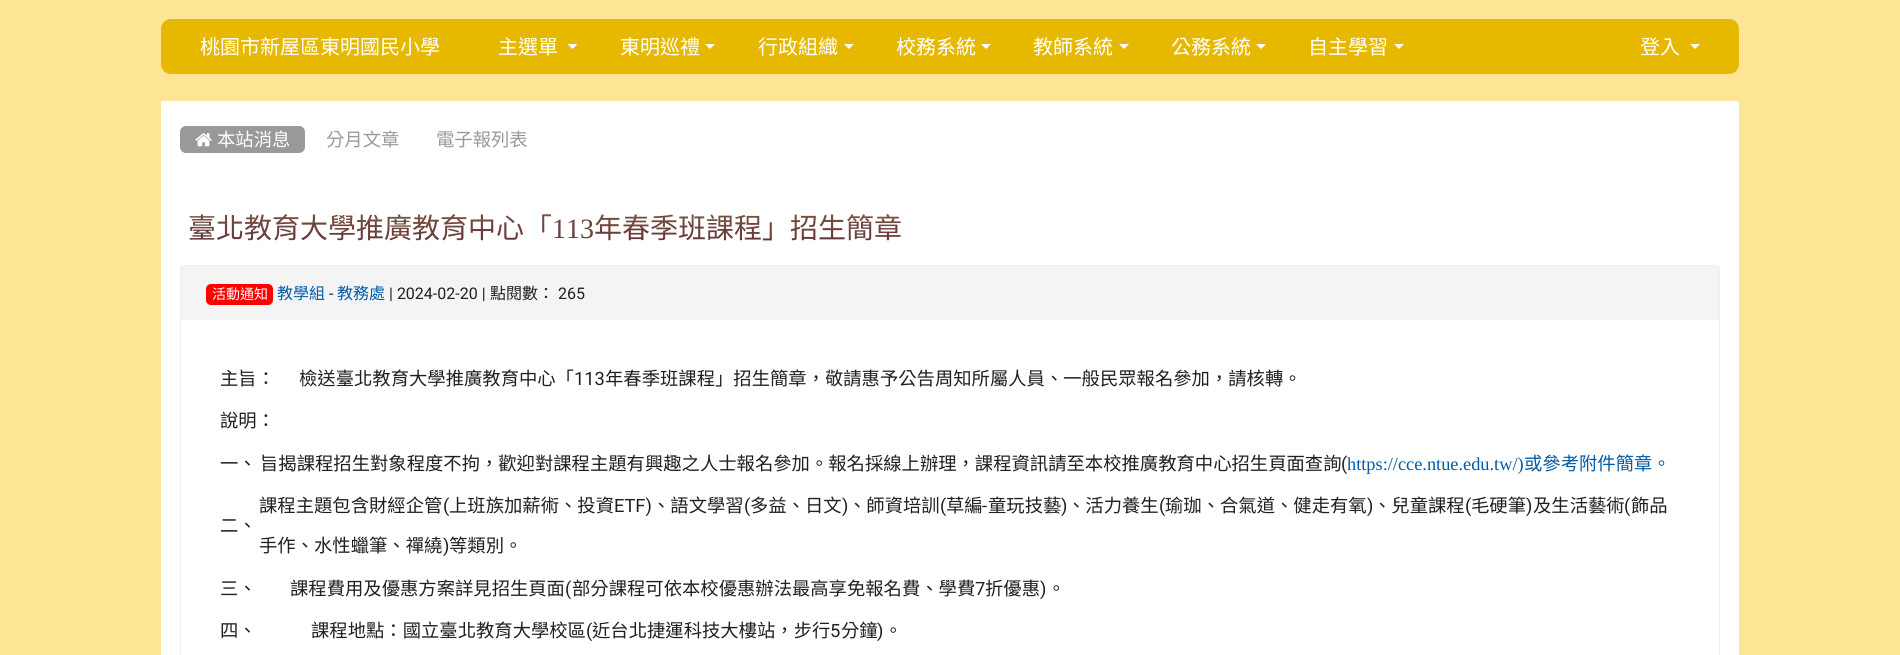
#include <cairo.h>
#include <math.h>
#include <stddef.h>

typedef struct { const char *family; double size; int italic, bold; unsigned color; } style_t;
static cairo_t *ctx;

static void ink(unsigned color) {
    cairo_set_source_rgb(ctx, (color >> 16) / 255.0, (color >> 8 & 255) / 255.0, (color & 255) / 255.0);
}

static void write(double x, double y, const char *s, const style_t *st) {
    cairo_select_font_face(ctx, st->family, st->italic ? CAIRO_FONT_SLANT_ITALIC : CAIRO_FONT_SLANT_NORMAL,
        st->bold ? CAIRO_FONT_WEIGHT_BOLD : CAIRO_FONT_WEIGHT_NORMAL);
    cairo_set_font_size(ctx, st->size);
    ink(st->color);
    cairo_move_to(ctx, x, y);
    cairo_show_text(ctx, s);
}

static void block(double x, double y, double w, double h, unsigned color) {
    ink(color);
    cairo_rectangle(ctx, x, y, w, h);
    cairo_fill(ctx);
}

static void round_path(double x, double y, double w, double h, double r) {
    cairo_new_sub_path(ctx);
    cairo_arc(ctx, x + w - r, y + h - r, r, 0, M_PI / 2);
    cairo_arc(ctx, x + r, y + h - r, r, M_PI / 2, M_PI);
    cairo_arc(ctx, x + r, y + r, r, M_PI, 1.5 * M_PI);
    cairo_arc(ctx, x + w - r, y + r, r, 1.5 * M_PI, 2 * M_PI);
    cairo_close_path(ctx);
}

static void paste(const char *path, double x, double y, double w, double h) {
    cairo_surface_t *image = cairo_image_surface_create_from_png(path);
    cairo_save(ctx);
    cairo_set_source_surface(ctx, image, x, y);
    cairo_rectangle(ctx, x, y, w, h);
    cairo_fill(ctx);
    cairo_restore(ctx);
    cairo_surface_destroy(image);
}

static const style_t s1 = {"Noto Sans CJK TC", 20, 0, 0, 0xffffff};
static const style_t s2 = {"Noto Sans CJK TC", 18.33, 0, 0, 0xffffff};
static const style_t s3 = {"Noto Sans CJK TC", 18.33, 0, 0, 0x999999};
static const style_t s4 = {"Noto Sans CJK TC", 14, 0, 0, 0xffffff};
static const style_t s5 = {"Noto Sans CJK TC", 16, 0, 0, 0x005ca8};
static const style_t s6 = {"Roboto", 16, 0, 0, 0x202020};
static const style_t s7 = {"Noto Sans CJK TC", 16, 0, 0, 0x202020};
static const style_t s8 = {"Noto Sans CJK TC", 18.33, 0, 0, 0x202020};
static const style_t s9 = {"Roboto", 18.33, 0, 0, 0x202020};
static const style_t s10 = {"Liberation Serif", 18.33, 0, 0, 0x005ca8};
static const style_t s11 = {"Noto Sans CJK TC", 18.33, 0, 0, 0x005ca8};

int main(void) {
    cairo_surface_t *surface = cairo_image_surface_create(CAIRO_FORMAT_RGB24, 1900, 655);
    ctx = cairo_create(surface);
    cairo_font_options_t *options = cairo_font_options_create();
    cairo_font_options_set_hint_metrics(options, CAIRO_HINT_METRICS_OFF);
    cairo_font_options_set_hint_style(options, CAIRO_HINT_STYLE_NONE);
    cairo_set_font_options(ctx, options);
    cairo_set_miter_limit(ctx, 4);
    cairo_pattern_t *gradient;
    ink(0xffe595);
    cairo_paint(ctx);
    ink(0xe6b900);
    round_path(161, 19, 1578, 55, 10);
    cairo_fill(ctx);
    write(200, 54, "桃園市新屋區東明國民小學", &s1);
    write(498, 54, "主選單", &s1);
    cairo_new_path(ctx);
    cairo_move_to(ctx, 567.5, 44);
    cairo_line_to(ctx, 577.5, 44);
    cairo_line_to(ctx, 572.5, 49);
    cairo_close_path(ctx);
    cairo_fill(ctx);
    write(620, 54, "東明巡禮", &s1);
    cairo_new_path(ctx);
    cairo_move_to(ctx, 705, 44);
    cairo_line_to(ctx, 715, 44);
    cairo_line_to(ctx, 710, 49);
    cairo_close_path(ctx);
    cairo_fill(ctx);
    write(758, 54, "行政組織", &s1);
    cairo_new_path(ctx);
    cairo_move_to(ctx, 844, 44);
    cairo_line_to(ctx, 854, 44);
    cairo_line_to(ctx, 849, 49);
    cairo_close_path(ctx);
    cairo_fill(ctx);
    write(896, 54, "校務系統", &s1);
    cairo_new_path(ctx);
    cairo_move_to(ctx, 981, 44);
    cairo_line_to(ctx, 991, 44);
    cairo_line_to(ctx, 986, 49);
    cairo_close_path(ctx);
    cairo_fill(ctx);
    write(1033, 54, "教師系統", &s1);
    cairo_new_path(ctx);
    cairo_move_to(ctx, 1119, 44);
    cairo_line_to(ctx, 1129, 44);
    cairo_line_to(ctx, 1124, 49);
    cairo_close_path(ctx);
    cairo_fill(ctx);
    write(1171, 54, "公務系統", &s1);
    cairo_new_path(ctx);
    cairo_move_to(ctx, 1256, 44);
    cairo_line_to(ctx, 1266, 44);
    cairo_line_to(ctx, 1261, 49);
    cairo_close_path(ctx);
    cairo_fill(ctx);
    write(1308, 54, "自主學習", &s1);
    cairo_new_path(ctx);
    cairo_move_to(ctx, 1394, 44);
    cairo_line_to(ctx, 1404, 44);
    cairo_line_to(ctx, 1399, 49);
    cairo_close_path(ctx);
    cairo_fill(ctx);
    write(1640, 54, "登入", &s1);
    cairo_new_path(ctx);
    cairo_move_to(ctx, 1690, 44);
    cairo_line_to(ctx, 1700, 44);
    cairo_line_to(ctx, 1695, 49);
    cairo_close_path(ctx);
    cairo_fill(ctx);
    block(161, 101, 1578, 554, 0xffffff);
    ink(0x999999);
    round_path(180, 126, 125, 27, 6);
    cairo_fill(ctx);
    paste("pic1.png", 195, 133, 17, 14);
    write(217, 146, "本站消息", &s2);
    write(326, 146, "分月文章", &s3);
    write(436, 146, "電子報列表", &s3);
    cairo_set_font_size(ctx, 28);
    gradient = cairo_pattern_create_linear(950, 204, 950, 252);
    cairo_pattern_add_color_stop_rgba(gradient, 0, 0.494, 0.361, 0.251, 1);
    cairo_pattern_add_color_stop_rgba(gradient, 1, 0.361, 0.161, 0.22, 1);
    cairo_set_source(ctx, gradient);
    cairo_pattern_destroy(gradient);
    cairo_move_to(ctx, 188, 238);
    cairo_show_text(ctx, "臺北教育大學推廣教育中心「");
    cairo_select_font_face(ctx, "Liberation Serif", CAIRO_FONT_SLANT_NORMAL, CAIRO_FONT_WEIGHT_NORMAL);
    cairo_move_to(ctx, 552, 238);
    cairo_show_text(ctx, "113");
    cairo_select_font_face(ctx, "Noto Sans CJK TC", CAIRO_FONT_SLANT_NORMAL, CAIRO_FONT_WEIGHT_NORMAL);
    cairo_move_to(ctx, 594, 238);
    cairo_show_text(ctx, "年春季班課程」招生簡章");
    round_path(180.5, 265.5, 1539, 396, 5.5);
    ink(0xefefef);
    cairo_set_line_width(ctx, 1);
    cairo_stroke(ctx);
    cairo_set_source_rgba(ctx, 0.784, 0.784, 0.784, 0.2);
    cairo_rectangle(ctx, 181, 266, 1538, 54);
    cairo_fill(ctx);
    ink(0xff0000);
    round_path(206, 284, 67, 21, 5);
    cairo_fill(ctx);
    write(212, 299, "活動通知", &s4);
    write(277, 299, "教學組", &s5);
    write(329, 299, "-", &s6);
    write(337, 299, "教務處", &s5);
    write(389, 299, "| 2024-02-20 |", &s6);
    write(490, 299, "點閱數：", &s7);
    write(558, 299, "265", &s6);
    write(220, 385, "主旨：", &s8);
    write(299, 385, "檢送臺北教育大學推廣教育中心「", &s8);
    write(574, 385, "113", &s9);
    write(605, 385, "年春季班課程」招生簡章，敬請惠予公告周知所屬人員、一般民眾報名參加，請核轉。", &s8);
    write(220, 427, "說明：", &s8);
    write(220, 470, "一、", &s8);
    write(260, 470, "旨揭課程招生對象程度不拘，歡迎對課程主題有興趣之人士報名參加。報名採線上辦理，課程資訊請至本校推廣教育中心招生頁面查詢", &s8);
    write(1341, 470, "(", &s9);
    write(1347, 470, "https://cce.ntue.edu.tw/)", &s10);
    write(1524, 470, "或參考附件簡章。", &s11);
    write(220, 532, "二、", &s8);
    write(259, 512, "課程主題包含財經企管", &s8);
    write(443, 512, "(", &s9);
    write(449, 512, "上班族加薪術、投資", &s8);
    write(614, 512, "ETF)", &s9);
    write(652, 512, "、語文學習", &s8);
    write(744, 512, "(", &s9);
    write(750, 512, "多益、日文", &s8);
    write(842, 512, ")", &s9);
    write(848, 512, "、師資培訓", &s8);
    write(940, 512, "(", &s9);
    write(946, 512, "草編", &s8);
    write(982, 512, "-", &s9);
    write(988, 512, "童玩技藝", &s8);
    write(1061, 512, ")", &s9);
    write(1067, 512, "、活力養生", &s8);
    write(1159, 512, "(", &s9);
    write(1165, 512, "瑜珈、合氣道、健走有氧", &s8);
    write(1367, 512, ")", &s9);
    write(1373, 512, "、兒童課程", &s8);
    write(1465, 512, "(", &s9);
    write(1471, 512, "毛硬筆", &s8);
    write(1526, 512, ")", &s9);
    write(1533, 512, "及生活藝術", &s8);
    write(1624, 512, "(", &s9);
    write(1631, 512, "飾品", &s8);
    write(259, 552, "手作、水性蠟筆、禪繞", &s8);
    write(443, 552, ")", &s9);
    write(449, 552, "等類別。", &s8);
    write(220, 595, "三、", &s8);
    write(290, 595, "課程費用及優惠方案詳見招生頁面", &s8);
    write(565, 595, "(", &s9);
    write(572, 595, "部分課程可依本校優惠辦法最高享免報名費、學費", &s8);
    write(975, 595, "7", &s9);
    write(985, 595, "折優惠", &s8);
    write(1040, 595, ")", &s9);
    write(1047, 595, "。", &s8);
    write(220, 637, "四、", &s8);
    write(311, 637, "課程地點：國立臺北教育大學校區", &s8);
    write(586, 637, "(", &s9);
    write(592, 637, "近台北捷運科技大樓站，步行", &s8);
    write(830, 637, "5", &s9);
    write(841, 637, "分鐘", &s8);
    write(877, 637, ")", &s9);
    write(884, 637, "。", &s8);
    cairo_surface_write_to_png(surface, "screenshot.png");
    cairo_font_options_destroy(options);
    cairo_destroy(ctx);
    cairo_surface_destroy(surface);
    return 0;
}
